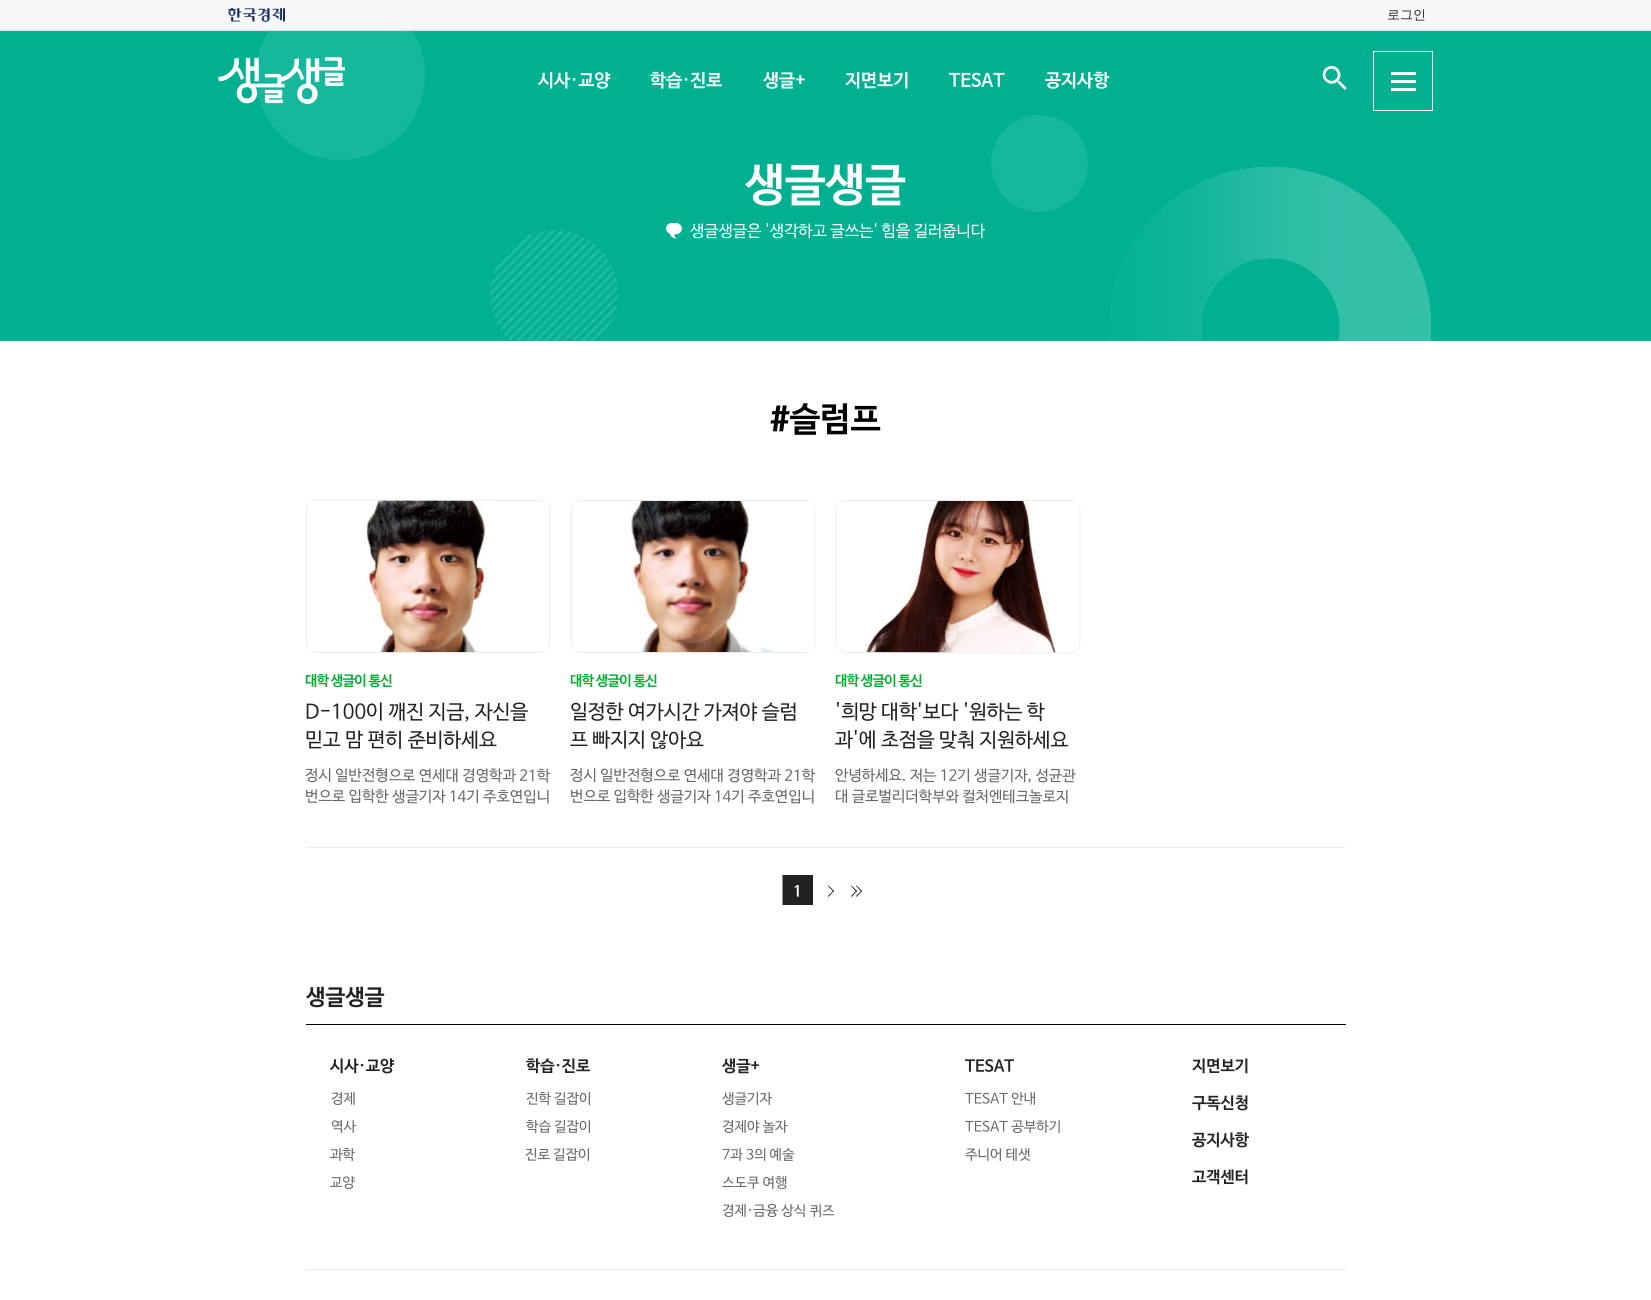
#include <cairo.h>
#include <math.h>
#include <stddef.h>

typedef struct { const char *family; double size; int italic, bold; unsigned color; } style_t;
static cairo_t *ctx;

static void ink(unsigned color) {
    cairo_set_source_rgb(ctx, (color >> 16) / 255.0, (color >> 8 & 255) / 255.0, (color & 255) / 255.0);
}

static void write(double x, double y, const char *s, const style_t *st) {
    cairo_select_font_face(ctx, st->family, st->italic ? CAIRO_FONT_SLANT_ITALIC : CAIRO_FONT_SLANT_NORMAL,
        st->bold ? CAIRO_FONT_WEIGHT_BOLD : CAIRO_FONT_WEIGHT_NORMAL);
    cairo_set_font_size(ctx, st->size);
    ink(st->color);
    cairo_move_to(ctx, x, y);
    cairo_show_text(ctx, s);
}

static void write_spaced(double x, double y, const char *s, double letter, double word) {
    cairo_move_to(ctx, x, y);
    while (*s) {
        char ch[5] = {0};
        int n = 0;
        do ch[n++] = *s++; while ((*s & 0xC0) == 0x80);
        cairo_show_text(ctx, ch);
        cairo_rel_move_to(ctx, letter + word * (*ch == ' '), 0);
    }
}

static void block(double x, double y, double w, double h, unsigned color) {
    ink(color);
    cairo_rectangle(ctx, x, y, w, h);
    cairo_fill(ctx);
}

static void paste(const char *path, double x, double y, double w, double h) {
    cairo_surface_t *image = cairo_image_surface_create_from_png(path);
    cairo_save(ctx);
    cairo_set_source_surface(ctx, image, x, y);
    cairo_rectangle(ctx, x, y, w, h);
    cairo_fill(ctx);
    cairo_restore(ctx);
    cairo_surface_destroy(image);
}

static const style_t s1 = {"WenQuanYi Zen Hei Medium", 13, 0, 0, 0x222222};
static const style_t s2 = {"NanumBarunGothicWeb", 18, 0, 1, 0xffffff};
static const style_t s3 = {"NanumBarunGothicWeb", 45, 0, 1, 0xffffff};
static const style_t s4 = {"NanumBarunGothicWeb", 16, 0, 0, 0xffffff};
static const style_t s5 = {"NanumBarunGothicWeb", 34, 0, 1, 0x000000};
static const style_t s6 = {"NanumBarunGothicWeb", 20, 0, 0, 0x222222};
static const style_t s7 = {"NanumBarunGothicWeb", 15, 0, 0, 0x666666};
static const style_t s8 = {"NanumBarunGothicWeb", 15, 0, 1, 0xffffff};
static const style_t s9 = {"NanumBarunGothicWeb", 22, 0, 1, 0x222222};
static const style_t s10 = {"NanumBarunGothicWeb", 16, 0, 1, 0x222222};
static const style_t s11 = {"NanumBarunGothicWeb", 14, 0, 0, 0x666666};

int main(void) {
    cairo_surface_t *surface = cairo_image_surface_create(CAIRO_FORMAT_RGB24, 1651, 1300);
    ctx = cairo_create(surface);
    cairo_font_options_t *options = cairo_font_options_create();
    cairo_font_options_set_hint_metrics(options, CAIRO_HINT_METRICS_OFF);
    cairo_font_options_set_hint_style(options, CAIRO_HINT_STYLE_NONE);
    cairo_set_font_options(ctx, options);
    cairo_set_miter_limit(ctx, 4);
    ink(0xffffff);
    cairo_paint(ctx);
    block(0, 0, 1651, 30, 0xf7f7f7);
    block(0, 30, 1651, 1, 0xe1e1e1);
    paste("pic1.png", 228, 8, 57, 14);
    write(1387, 19, "로그인", &s1);
    block(0, 31, 1651, 310, 0x00b091);
    paste("pic2.png", 258, 31, 1173, 310);
    paste("pic3.png", 218, 57, 127, 47);
    cairo_save(ctx);
    cairo_translate(ctx, 538, 86);
    cairo_rotate(ctx, 0.1 * M_PI / 180);
    write(0, 0, "시사·교양", &s2);
    cairo_restore(ctx);
    cairo_save(ctx);
    cairo_translate(ctx, 650, 86);
    cairo_rotate(ctx, 0.1 * M_PI / 180);
    write(0, 0, "학습·진로", &s2);
    cairo_restore(ctx);
    cairo_save(ctx);
    cairo_translate(ctx, 763, 86);
    cairo_rotate(ctx, 0.1 * M_PI / 180);
    write(0, 0, "생글+", &s2);
    cairo_restore(ctx);
    cairo_save(ctx);
    cairo_translate(ctx, 845, 86);
    cairo_rotate(ctx, 0.1 * M_PI / 180);
    write(0, 0, "지면보기", &s2);
    cairo_restore(ctx);
    cairo_save(ctx);
    cairo_translate(ctx, 949, 86);
    cairo_rotate(ctx, 0.1 * M_PI / 180);
    write(0, 0, "TESAT", &s2);
    cairo_restore(ctx);
    cairo_save(ctx);
    cairo_translate(ctx, 1045, 86);
    cairo_rotate(ctx, 0.1 * M_PI / 180);
    write(0, 0, "공지사항", &s2);
    cairo_restore(ctx);
    paste("pic4.png", 1322, 66, 25, 24);
    cairo_new_path(ctx);
    cairo_move_to(ctx, 1373.5, 51.5);
    cairo_line_to(ctx, 1432.5, 51.5);
    cairo_line_to(ctx, 1432.5, 110.5);
    cairo_line_to(ctx, 1373.5, 110.5);
    cairo_close_path(ctx);
    ink(0xffffff);
    cairo_set_line_width(ctx, 1);
    cairo_stroke(ctx);
    block(1391, 80, 25, 3, 0xffffff);
    block(1391, 72, 25, 3, 0xffffff);
    block(1391, 88, 25, 3, 0xffffff);
    write(745, 199, "생글생글", &s3);
    paste("pic5.png", 666, 223, 16, 16);
    write(690, 236, "생글생글은 '생각하고 글쓰는' 힘을 길러줍니다", &s4);
    write(770, 430, "#슬럼프", &s5);
    block(306, 847, 1040, 1, 0xececec);
    paste("pic6.png", 365, 499, 122, 154);
    cairo_save(ctx);
    cairo_new_path(ctx);
    cairo_move_to(ctx, 316.5, 499.5);
    cairo_line_to(ctx, 539.5, 500);
    cairo_curve_to(ctx, 545.5, 500, 550.5, 505, 550.5, 511);
    cairo_line_to(ctx, 550.5, 642);
    cairo_curve_to(ctx, 550.5, 648, 545.5, 653, 539.5, 653);
    cairo_line_to(ctx, 316.5, 653);
    cairo_curve_to(ctx, 310.5, 653, 305.5, 648, 305.5, 642);
    cairo_line_to(ctx, 305.5, 510.5);
    cairo_curve_to(ctx, 305.5, 504.5, 310.5, 499.5, 316.5, 499.5);
    cairo_close_path(ctx);
    cairo_clip(ctx);
    cairo_new_path(ctx);
    cairo_move_to(ctx, 315.5, 500);
    cairo_line_to(ctx, 540.5, 500.5);
    cairo_curve_to(ctx, 546, 500.5, 550, 504.5, 550, 510);
    cairo_line_to(ctx, 550, 643);
    cairo_curve_to(ctx, 550, 648.5, 545.5, 652.5, 540.5, 652.5);
    cairo_line_to(ctx, 315.5, 652.5);
    cairo_curve_to(ctx, 310.5, 652.5, 306, 648, 306, 643);
    cairo_line_to(ctx, 306, 509.5);
    cairo_curve_to(ctx, 306, 504.5, 310.5, 500, 315.5, 500);
    cairo_close_path(ctx);
    cairo_stroke(ctx);
    cairo_restore(ctx);
    cairo_set_font_size(ctx, 14);
    ink(0x0aad34);
    cairo_save(ctx);
    cairo_translate(ctx, 305, 685);
    cairo_rotate(ctx, 0.1 * M_PI / 180);
    write_spaced(0, 0, "대학 생글이 통신", -0.75, 0);
    cairo_restore(ctx);
    cairo_save(ctx);
    cairo_translate(ctx, 305, 718);
    cairo_rotate(ctx, 0.1 * M_PI / 180);
    write(0, 0, "D-100이 깨진 지금, 자신을", &s6);
    cairo_restore(ctx);
    cairo_save(ctx);
    cairo_translate(ctx, 305, 746);
    cairo_rotate(ctx, 0.1 * M_PI / 180);
    write(0, 0, "믿고 맘 편히 준비하세요", &s6);
    cairo_restore(ctx);
    cairo_save(ctx);
    cairo_translate(ctx, 305, 780);
    cairo_rotate(ctx, 0.1 * M_PI / 180);
    write(0, 0, "정시 일반전형으로 연세대 경영학과 21학", &s7);
    cairo_restore(ctx);
    cairo_save(ctx);
    cairo_translate(ctx, 305, 801);
    cairo_rotate(ctx, 0.1 * M_PI / 180);
    write(0, 0, "번으로 입학한 생글기자 14기 주호연입니", &s7);
    cairo_restore(ctx);
    paste("pic7.png", 630, 499, 146, 153);
    cairo_save(ctx);
    cairo_new_path(ctx);
    cairo_move_to(ctx, 581.5, 500);
    cairo_line_to(ctx, 804.5, 500);
    cairo_curve_to(ctx, 810.5, 500, 815.5, 505, 815.5, 511);
    cairo_line_to(ctx, 815.5, 642);
    cairo_curve_to(ctx, 815.5, 648.5, 810.5, 653, 804.5, 653);
    cairo_line_to(ctx, 581.5, 653);
    cairo_curve_to(ctx, 575.5, 653, 570.5, 648, 570.5, 642);
    cairo_line_to(ctx, 570.5, 511);
    cairo_curve_to(ctx, 570.5, 504.5, 575.5, 500, 581.5, 500);
    cairo_close_path(ctx);
    cairo_clip(ctx);
    cairo_new_path(ctx);
    cairo_move_to(ctx, 580.5, 500.5);
    cairo_line_to(ctx, 805.5, 500.5);
    cairo_curve_to(ctx, 811, 500.5, 815, 505, 815, 510);
    cairo_line_to(ctx, 815, 643);
    cairo_curve_to(ctx, 815, 648.5, 810.5, 652.5, 805.5, 652.5);
    cairo_line_to(ctx, 580.5, 652.5);
    cairo_curve_to(ctx, 575.5, 652.5, 571, 648, 571, 643);
    cairo_line_to(ctx, 571, 510);
    cairo_curve_to(ctx, 571, 504.5, 575.5, 500.5, 580.5, 500.5);
    cairo_close_path(ctx);
    ink(0xececec);
    cairo_stroke(ctx);
    cairo_restore(ctx);
    cairo_select_font_face(ctx, "NanumBarunGothicWeb", CAIRO_FONT_SLANT_NORMAL, CAIRO_FONT_WEIGHT_BOLD);
    cairo_set_font_size(ctx, 14);
    ink(0x0aad34);
    cairo_save(ctx);
    cairo_translate(ctx, 570, 685);
    cairo_rotate(ctx, 0.1 * M_PI / 180);
    write_spaced(0, 0, "대학 생글이 통신", -0.75, 0);
    cairo_restore(ctx);
    cairo_save(ctx);
    cairo_translate(ctx, 570, 718);
    cairo_rotate(ctx, 0.1 * M_PI / 180);
    write(0, 0, "일정한 여가시간 가져야 슬럼", &s6);
    cairo_restore(ctx);
    cairo_save(ctx);
    cairo_translate(ctx, 570, 746);
    cairo_rotate(ctx, 0.1 * M_PI / 180);
    write(0, 0, "프 빠지지 않아요", &s6);
    cairo_restore(ctx);
    cairo_save(ctx);
    cairo_translate(ctx, 570, 780);
    cairo_rotate(ctx, 0.1 * M_PI / 180);
    write(0, 0, "정시 일반전형으로 연세대 경영학과 21학", &s7);
    cairo_restore(ctx);
    cairo_save(ctx);
    cairo_translate(ctx, 570, 801);
    cairo_rotate(ctx, 0.1 * M_PI / 180);
    write(0, 0, "번으로 입학한 생글기자 14기 주호연입니", &s7);
    cairo_restore(ctx);
    paste("pic8.png", 865, 500, 191, 154);
    cairo_save(ctx);
    cairo_new_path(ctx);
    cairo_move_to(ctx, 846.5, 500);
    cairo_line_to(ctx, 1069.5, 500);
    cairo_curve_to(ctx, 1075.5, 500, 1080.5, 505, 1080.5, 511);
    cairo_line_to(ctx, 1080.5, 642.5);
    cairo_curve_to(ctx, 1080.5, 648.5, 1075.5, 653.5, 1069.5, 653.5);
    cairo_line_to(ctx, 846.5, 653);
    cairo_curve_to(ctx, 840.5, 653, 835.5, 648, 835.5, 642);
    cairo_line_to(ctx, 835.5, 511);
    cairo_curve_to(ctx, 835.5, 505, 840.5, 500, 846.5, 500);
    cairo_close_path(ctx);
    cairo_clip(ctx);
    cairo_new_path(ctx);
    cairo_move_to(ctx, 845.5, 500.5);
    cairo_line_to(ctx, 1070.5, 500.5);
    cairo_curve_to(ctx, 1076, 500.5, 1080, 505, 1080, 510);
    cairo_line_to(ctx, 1080, 643.5);
    cairo_curve_to(ctx, 1080, 648.5, 1075.5, 653, 1070.5, 653);
    cairo_line_to(ctx, 845.5, 652.5);
    cairo_curve_to(ctx, 840.5, 652.5, 836, 648.5, 836, 643);
    cairo_line_to(ctx, 836, 510);
    cairo_curve_to(ctx, 836, 504.5, 840.5, 500.5, 845.5, 500.5);
    cairo_close_path(ctx);
    ink(0xececec);
    cairo_stroke(ctx);
    cairo_restore(ctx);
    cairo_select_font_face(ctx, "NanumBarunGothicWeb", CAIRO_FONT_SLANT_NORMAL, CAIRO_FONT_WEIGHT_BOLD);
    cairo_set_font_size(ctx, 14);
    ink(0x0aad34);
    cairo_save(ctx);
    cairo_translate(ctx, 835, 685);
    cairo_rotate(ctx, 0.1 * M_PI / 180);
    write_spaced(0, 0, "대학 생글이 통신", -0.75, 0);
    cairo_restore(ctx);
    cairo_save(ctx);
    cairo_translate(ctx, 835, 718);
    cairo_rotate(ctx, 0.1 * M_PI / 180);
    write(0, 0, "'희망 대학'보다 '원하는 학", &s6);
    cairo_restore(ctx);
    cairo_save(ctx);
    cairo_translate(ctx, 835, 746);
    cairo_rotate(ctx, 0.1 * M_PI / 180);
    write(0, 0, "과'에 초점을 맞춰 지원하세요", &s6);
    cairo_restore(ctx);
    cairo_save(ctx);
    cairo_translate(ctx, 835, 780);
    cairo_rotate(ctx, 0.1 * M_PI / 180);
    write(0, 0, "안녕하세요. 저는 12기 생글기자, 성균관", &s7);
    cairo_restore(ctx);
    cairo_save(ctx);
    cairo_translate(ctx, 835, 801);
    cairo_rotate(ctx, 0.1 * M_PI / 180);
    write(0, 0, "대 글로벌리더학부와 컬처엔테크놀로지", &s7);
    cairo_restore(ctx);
    block(783, 875, 30, 30, 0x222222);
    cairo_new_path(ctx);
    cairo_move_to(ctx, 783, 875.5);
    cairo_line_to(ctx, 812, 875.5);
    cairo_line_to(ctx, 812, 904.5);
    cairo_line_to(ctx, 783, 904.5);
    cairo_close_path(ctx);
    cairo_stroke(ctx);
    write(793, 896, "1", &s8);
    ink(0x222222);
    cairo_new_path(ctx);
    cairo_move_to(ctx, 828.5, 885.5);
    cairo_line_to(ctx, 834, 891);
    cairo_line_to(ctx, 833.5, 892);
    cairo_line_to(ctx, 828, 886);
    cairo_close_path(ctx);
    cairo_fill(ctx);
    cairo_new_path(ctx);
    cairo_move_to(ctx, 833.5, 890.5);
    cairo_line_to(ctx, 834, 891);
    cairo_line_to(ctx, 828.5, 897);
    cairo_line_to(ctx, 828, 896);
    cairo_close_path(ctx);
    cairo_move_to(ctx, 856.5, 885.5);
    cairo_line_to(ctx, 862, 891);
    cairo_line_to(ctx, 861.5, 892);
    cairo_line_to(ctx, 856, 886);
    cairo_close_path(ctx);
    cairo_fill(ctx);
    cairo_new_path(ctx);
    cairo_move_to(ctx, 861.5, 890.5);
    cairo_line_to(ctx, 862, 891);
    cairo_line_to(ctx, 856.5, 897);
    cairo_line_to(ctx, 856, 896);
    cairo_close_path(ctx);
    cairo_fill(ctx);
    cairo_new_path(ctx);
    cairo_move_to(ctx, 851.5, 885.5);
    cairo_line_to(ctx, 857, 891);
    cairo_line_to(ctx, 856.5, 892);
    cairo_line_to(ctx, 851, 886);
    cairo_close_path(ctx);
    cairo_fill(ctx);
    cairo_new_path(ctx);
    cairo_move_to(ctx, 856.5, 890.5);
    cairo_line_to(ctx, 857, 891);
    cairo_line_to(ctx, 851.5, 897);
    cairo_line_to(ctx, 851, 896);
    cairo_close_path(ctx);
    cairo_fill(ctx);
    write(306, 1004, "생글생글", &s9);
    block(306, 1024, 1040, 1, 0x000000);
    block(306, 1269, 1040, 1, 0xeeeeee);
    write(330, 1071, "시사·교양", &s10);
    cairo_save(ctx);
    cairo_translate(ctx, 331, 1103);
    cairo_rotate(ctx, 0.1 * M_PI / 180);
    write(0, 0, "경제", &s11);
    cairo_restore(ctx);
    cairo_save(ctx);
    cairo_translate(ctx, 331, 1131);
    cairo_rotate(ctx, 0.1 * M_PI / 180);
    write(0, 0, "역사", &s11);
    cairo_restore(ctx);
    cairo_save(ctx);
    cairo_translate(ctx, 330, 1159);
    cairo_rotate(ctx, 0.1 * M_PI / 180);
    write(0, 0, "과학", &s11);
    cairo_restore(ctx);
    cairo_save(ctx);
    cairo_translate(ctx, 330, 1187);
    cairo_rotate(ctx, 0.1 * M_PI / 180);
    write(0, 0, "교양", &s11);
    cairo_restore(ctx);
    write(526, 1071, "학습·진로", &s10);
    cairo_save(ctx);
    cairo_translate(ctx, 526, 1103);
    cairo_rotate(ctx, 0.1 * M_PI / 180);
    write(0, 0, "진학 길잡이", &s11);
    cairo_restore(ctx);
    cairo_save(ctx);
    cairo_translate(ctx, 526, 1131);
    cairo_rotate(ctx, 0.1 * M_PI / 180);
    write(0, 0, "학습 길잡이", &s11);
    cairo_restore(ctx);
    cairo_save(ctx);
    cairo_translate(ctx, 525, 1159);
    cairo_rotate(ctx, 0.1 * M_PI / 180);
    write(0, 0, "진로 길잡이", &s11);
    cairo_restore(ctx);
    write(722, 1071, "생글+", &s10);
    cairo_save(ctx);
    cairo_translate(ctx, 722, 1103);
    cairo_rotate(ctx, 0.1 * M_PI / 180);
    write(0, 0, "생글기자", &s11);
    cairo_restore(ctx);
    cairo_save(ctx);
    cairo_translate(ctx, 722, 1131);
    cairo_rotate(ctx, 0.1 * M_PI / 180);
    write(0, 0, "경제야 놀자", &s11);
    cairo_restore(ctx);
    cairo_save(ctx);
    cairo_translate(ctx, 722, 1159);
    cairo_rotate(ctx, 0.1 * M_PI / 180);
    write(0, 0, "7과 3의 예술", &s11);
    cairo_restore(ctx);
    cairo_save(ctx);
    cairo_translate(ctx, 722, 1187);
    cairo_rotate(ctx, 0.1 * M_PI / 180);
    write(0, 0, "스도쿠 여행", &s11);
    cairo_restore(ctx);
    cairo_save(ctx);
    cairo_translate(ctx, 722, 1215);
    cairo_rotate(ctx, 0.1 * M_PI / 180);
    write(0, 0, "경제·금융 상식 퀴즈", &s11);
    cairo_restore(ctx);
    write(965, 1071, "TESAT", &s10);
    cairo_save(ctx);
    cairo_translate(ctx, 965, 1103);
    cairo_rotate(ctx, 0.1 * M_PI / 180);
    write(0, 0, "TESAT 안내", &s11);
    cairo_restore(ctx);
    cairo_save(ctx);
    cairo_translate(ctx, 965, 1131);
    cairo_rotate(ctx, 0.1 * M_PI / 180);
    write(0, 0, "TESAT 공부하기", &s11);
    cairo_restore(ctx);
    cairo_save(ctx);
    cairo_translate(ctx, 965, 1159);
    cairo_rotate(ctx, 0.1 * M_PI / 180);
    write(0, 0, "주니어 테샛", &s11);
    cairo_restore(ctx);
    write(1192, 1071, "지면보기", &s10);
    cairo_save(ctx);
    cairo_translate(ctx, 1192, 1108);
    cairo_rotate(ctx, 0.1 * M_PI / 180);
    write(0, 0, "구독신청", &s10);
    cairo_restore(ctx);
    cairo_save(ctx);
    cairo_translate(ctx, 1192, 1145);
    cairo_rotate(ctx, 0.1 * M_PI / 180);
    write(0, 0, "공지사항", &s10);
    cairo_restore(ctx);
    cairo_save(ctx);
    cairo_translate(ctx, 1192, 1182);
    cairo_rotate(ctx, 0.1 * M_PI / 180);
    write(0, 0, "고객센터", &s10);
    cairo_restore(ctx);
    cairo_surface_write_to_png(surface, "screenshot.png");
    cairo_font_options_destroy(options);
    cairo_destroy(ctx);
    cairo_surface_destroy(surface);
    return 0;
}
